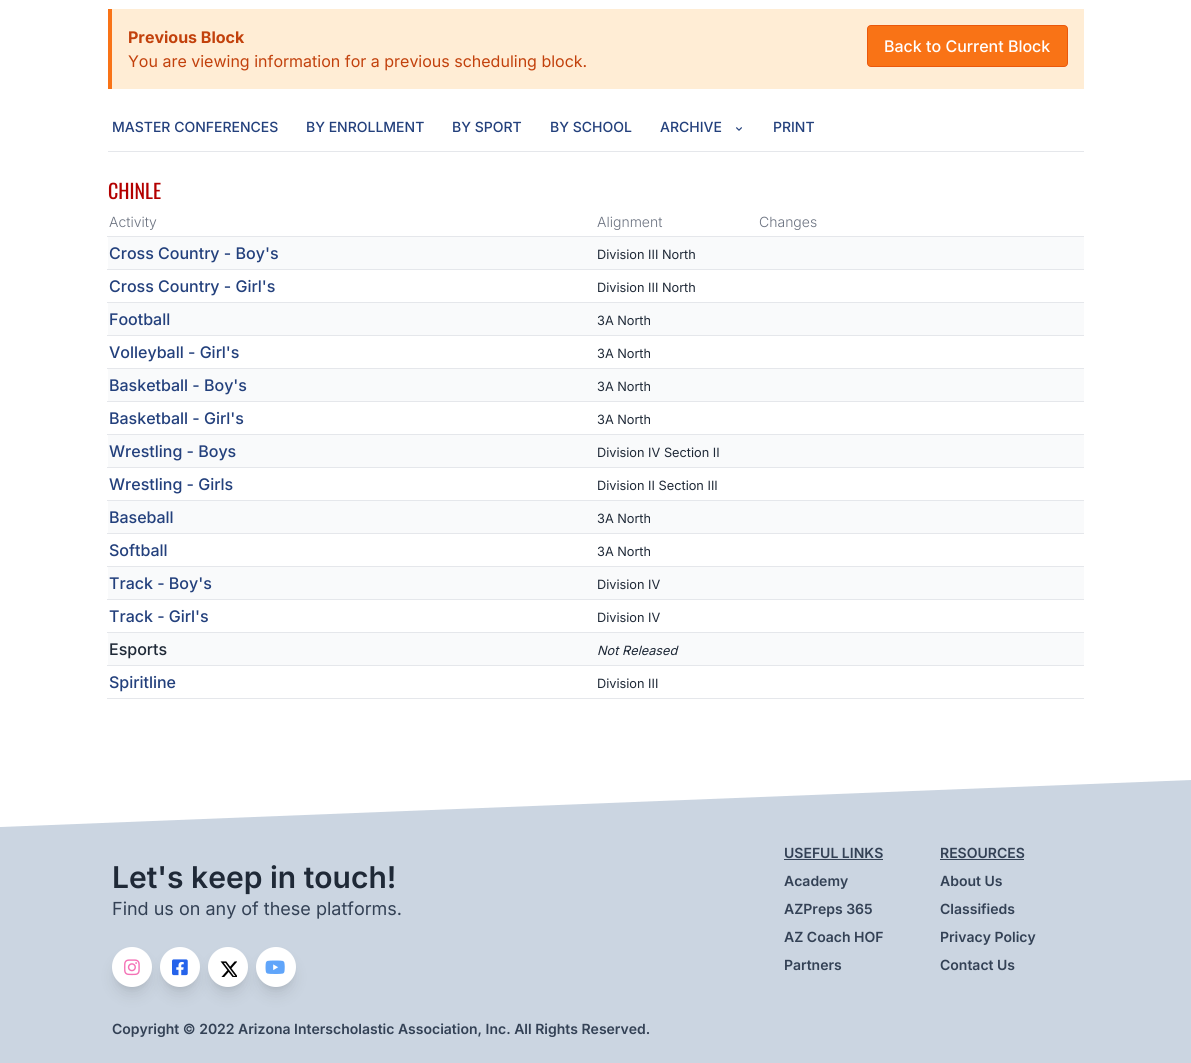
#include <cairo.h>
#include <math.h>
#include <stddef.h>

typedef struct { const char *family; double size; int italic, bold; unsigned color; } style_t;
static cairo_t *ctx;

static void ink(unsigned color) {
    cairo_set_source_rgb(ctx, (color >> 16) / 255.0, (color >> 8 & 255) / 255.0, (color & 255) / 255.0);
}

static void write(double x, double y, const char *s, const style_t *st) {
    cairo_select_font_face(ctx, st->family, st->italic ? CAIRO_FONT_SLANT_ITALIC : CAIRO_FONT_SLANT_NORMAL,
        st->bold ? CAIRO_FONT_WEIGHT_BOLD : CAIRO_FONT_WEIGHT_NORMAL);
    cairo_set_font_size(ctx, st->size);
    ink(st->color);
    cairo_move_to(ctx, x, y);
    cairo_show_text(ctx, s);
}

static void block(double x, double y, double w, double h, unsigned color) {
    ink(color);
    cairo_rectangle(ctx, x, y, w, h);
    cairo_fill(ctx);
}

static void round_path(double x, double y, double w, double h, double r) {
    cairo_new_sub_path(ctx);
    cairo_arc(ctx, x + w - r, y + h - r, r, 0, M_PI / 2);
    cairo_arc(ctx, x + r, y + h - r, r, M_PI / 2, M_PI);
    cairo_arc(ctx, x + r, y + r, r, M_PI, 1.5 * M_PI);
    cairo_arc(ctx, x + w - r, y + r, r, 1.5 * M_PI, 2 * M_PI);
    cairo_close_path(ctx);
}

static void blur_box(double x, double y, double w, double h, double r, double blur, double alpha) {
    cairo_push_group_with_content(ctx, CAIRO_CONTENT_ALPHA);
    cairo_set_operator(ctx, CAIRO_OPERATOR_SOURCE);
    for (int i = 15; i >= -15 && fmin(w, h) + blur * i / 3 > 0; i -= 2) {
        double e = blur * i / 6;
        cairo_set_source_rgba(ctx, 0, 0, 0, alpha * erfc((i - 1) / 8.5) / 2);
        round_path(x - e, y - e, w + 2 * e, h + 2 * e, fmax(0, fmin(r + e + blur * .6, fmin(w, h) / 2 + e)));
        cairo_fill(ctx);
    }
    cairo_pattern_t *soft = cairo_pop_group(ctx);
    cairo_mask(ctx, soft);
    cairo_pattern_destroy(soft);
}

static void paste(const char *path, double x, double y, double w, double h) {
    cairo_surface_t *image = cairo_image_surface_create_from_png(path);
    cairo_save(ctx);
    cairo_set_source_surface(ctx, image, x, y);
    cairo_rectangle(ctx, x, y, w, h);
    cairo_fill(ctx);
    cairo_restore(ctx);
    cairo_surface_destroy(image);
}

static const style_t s1 = {"Inter", 16, 0, 1, 0xc2410c};
static const style_t s2 = {"Inter Medium", 16, 0, 0, 0xffffff};
static const style_t s3 = {"Inter", 16, 0, 0, 0xc2410c};
static const style_t s4 = {"Inter Medium", 14, 0, 0, 0x23407c};
static const style_t s5 = {"Oswald", 20, 0, 0, 0xb30000};
static const style_t s6 = {"Inter Light", 14, 0, 0, 0x6b7280};
static const style_t s7 = {"Inter Medium", 16, 0, 0, 0x23407c};
static const style_t s8 = {"Inter", 12.75, 0, 0, 0x1f2937};
static const style_t s9 = {"Inter Medium", 16, 0, 0, 0x1f2937};
static const style_t s10 = {"Inter", 12.75, 1, 0, 0x1f2937};
static const style_t s11 = {"Inter SemiBold", 30, 0, 0, 0x1f2937};
static const style_t s12 = {"Inter", 18, 0, 0, 0x334155};
static const style_t s13 = {"Inter SemiBold", 14, 0, 0, 0x334155};

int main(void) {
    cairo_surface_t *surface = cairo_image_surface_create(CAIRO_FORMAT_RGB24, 1191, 1063);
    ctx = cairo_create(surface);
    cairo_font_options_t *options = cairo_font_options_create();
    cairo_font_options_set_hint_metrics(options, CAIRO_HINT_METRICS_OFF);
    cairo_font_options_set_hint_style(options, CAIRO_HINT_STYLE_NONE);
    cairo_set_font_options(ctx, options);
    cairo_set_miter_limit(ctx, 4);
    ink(0xffffff);
    cairo_paint(ctx);
    block(112, 9, 972, 80, 0xffedd5);
    block(108, 9, 4, 80, 0xf97316);
    write(128, 43, "Previous Block", &s1);
    ink(0xf97316);
    round_path(867.5, 25.5, 200, 41, 3.5);
    cairo_fill_preserve(ctx);
    ink(0xea580c);
    cairo_set_line_width(ctx, 1);
    cairo_stroke(ctx);
    write(884, 52, "Back to Current Block", &s2);
    write(128, 67, "You are viewing information for a previous scheduling block.", &s3);
    block(108, 151, 976, 1, 0xe5e7eb);
    write(112, 132, "MASTER CONFERENCES", &s4);
    write(306, 132, "BY ENROLLMENT", &s4);
    write(452, 132, "BY SPORT", &s4);
    write(550, 132, "BY SCHOOL", &s4);
    write(660, 132, "ARCHIVE", &s4);
    paste("pic1.png", 736, 127, 6, 4);
    write(773, 132, "PRINT", &s4);
    write(108, 199, "CHINLE", &s5);
    block(107, 236, 977, 1, 0xe5e7eb);
    write(109, 227, "Activity", &s6);
    write(597, 227, "Alignment", &s6);
    write(759, 227, "Changes", &s6);
    block(108, 237, 976, 32, 0xf9fafb);
    block(107, 269, 977, 1, 0xe5e7eb);
    write(109, 259, "Cross Country - Boy's", &s7);
    write(597, 259, "Division III North", &s8);
    block(107, 302, 977, 1, 0xe5e7eb);
    write(109, 292, "Cross Country - Girl's", &s7);
    write(597, 292, "Division III North", &s8);
    block(108, 303, 976, 32, 0xf9fafb);
    block(107, 335, 977, 1, 0xe5e7eb);
    write(109, 325, "Football", &s7);
    write(597, 325, "3A North", &s8);
    block(107, 368, 977, 1, 0xe5e7eb);
    write(109, 358, "Volleyball - Girl's", &s7);
    write(597, 358, "3A North", &s8);
    block(108, 369, 976, 32, 0xf9fafb);
    block(107, 401, 977, 1, 0xe5e7eb);
    write(109, 391, "Basketball - Boy's", &s7);
    write(597, 391, "3A North", &s8);
    block(107, 434, 977, 1, 0xe5e7eb);
    write(109, 424, "Basketball - Girl's", &s7);
    write(597, 424, "3A North", &s8);
    block(108, 435, 976, 32, 0xf9fafb);
    block(107, 467, 977, 1, 0xe5e7eb);
    write(109, 457, "Wrestling - Boys", &s7);
    write(597, 457, "Division IV Section II", &s8);
    block(107, 500, 977, 1, 0xe5e7eb);
    write(109, 490, "Wrestling - Girls", &s7);
    write(597, 490, "Division II Section III", &s8);
    block(108, 501, 976, 32, 0xf9fafb);
    block(107, 533, 977, 1, 0xe5e7eb);
    write(109, 523, "Baseball", &s7);
    write(597, 523, "3A North", &s8);
    block(107, 566, 977, 1, 0xe5e7eb);
    write(109, 556, "Softball", &s7);
    write(597, 556, "3A North", &s8);
    block(108, 567, 976, 32, 0xf9fafb);
    block(107, 599, 977, 1, 0xe5e7eb);
    write(109, 589, "Track - Boy's", &s7);
    write(597, 589, "Division IV", &s8);
    block(107, 632, 977, 1, 0xe5e7eb);
    write(109, 622, "Track - Girl's", &s7);
    write(597, 622, "Division IV", &s8);
    block(108, 633, 976, 32, 0xf9fafb);
    block(107, 665, 977, 1, 0xe5e7eb);
    write(109, 655, "Esports", &s9);
    write(597, 655, "Not Released", &s10);
    block(107, 698, 977, 1, 0xe5e7eb);
    write(109, 688, "Spiritline", &s7);
    write(597, 688, "Division III", &s8);
    block(0, 827, 1191, 236, 0xcbd5e1);
    cairo_new_path(ctx);
    cairo_move_to(ctx, 1191, 780);
    cairo_line_to(ctx, 1191, 827);
    cairo_line_to(ctx, 0, 827);
    cairo_close_path(ctx);
    cairo_fill(ctx);
    write(112, 888, "Let's keep in touch!", &s11);
    write(112, 915, "Find us on any of these platforms.", &s12);
    ink(0x000000);
    blur_box(116, 955, 32, 32, 16, 3, 0.1);
    blur_box(115, 960, 34, 34, 17, 7.5, 0.1);
    ink(0xffffff);
    cairo_arc(ctx, 132, 967, 20, 0, 2 * M_PI);
    cairo_fill(ctx);
    paste("pic2.png", 124, 959, 16, 17);
    ink(0x000000);
    blur_box(164, 955, 32, 32, 16, 3, 0.1);
    blur_box(163, 960, 34, 34, 17, 7.5, 0.1);
    ink(0xffffff);
    cairo_arc(ctx, 180, 967, 20, 0, 2 * M_PI);
    cairo_fill(ctx);
    paste("pic3.png", 172, 959, 16, 17);
    ink(0x000000);
    blur_box(212, 955, 32, 32, 16, 3, 0.1);
    blur_box(211, 960, 34, 34, 17, 7.5, 0.1);
    ink(0xffffff);
    cairo_arc(ctx, 228, 967, 20, 0, 2 * M_PI);
    cairo_fill(ctx);
    ink(0x000000);
    blur_box(259, 960, 34, 34, 17, 7.5, 0.1);
    paste("pic4.png", 220, 961, 17, 16);
    blur_box(260, 955, 32, 32, 16, 3, 0.1);
    ink(0xffffff);
    cairo_arc(ctx, 276, 967, 20, 0, 2 * M_PI);
    cairo_fill(ctx);
    paste("pic5.png", 265, 960, 20, 14);
    write(784, 858, "USEFUL LINKS", &s13);
    block(784, 859, 99, 1, 0x334155);
    write(784, 886, "Academy", &s13);
    write(784, 914, "AZPreps 365", &s13);
    write(784, 942, "AZ Coach HOF", &s13);
    write(784, 970, "Partners", &s13);
    write(940, 858, "RESOURCES", &s13);
    block(940, 859, 84, 1, 0x334155);
    write(940, 886, "About Us", &s13);
    write(940, 914, "Classifieds", &s13);
    write(940, 942, "Privacy Policy", &s13);
    write(940, 970, "Contact Us", &s13);
    write(112, 1034, "Copyright © 2022 Arizona Interscholastic Association, Inc. All Rights Reserved.", &s13);
    cairo_surface_write_to_png(surface, "screenshot.png");
    cairo_font_options_destroy(options);
    cairo_destroy(ctx);
    cairo_surface_destroy(surface);
    return 0;
}
